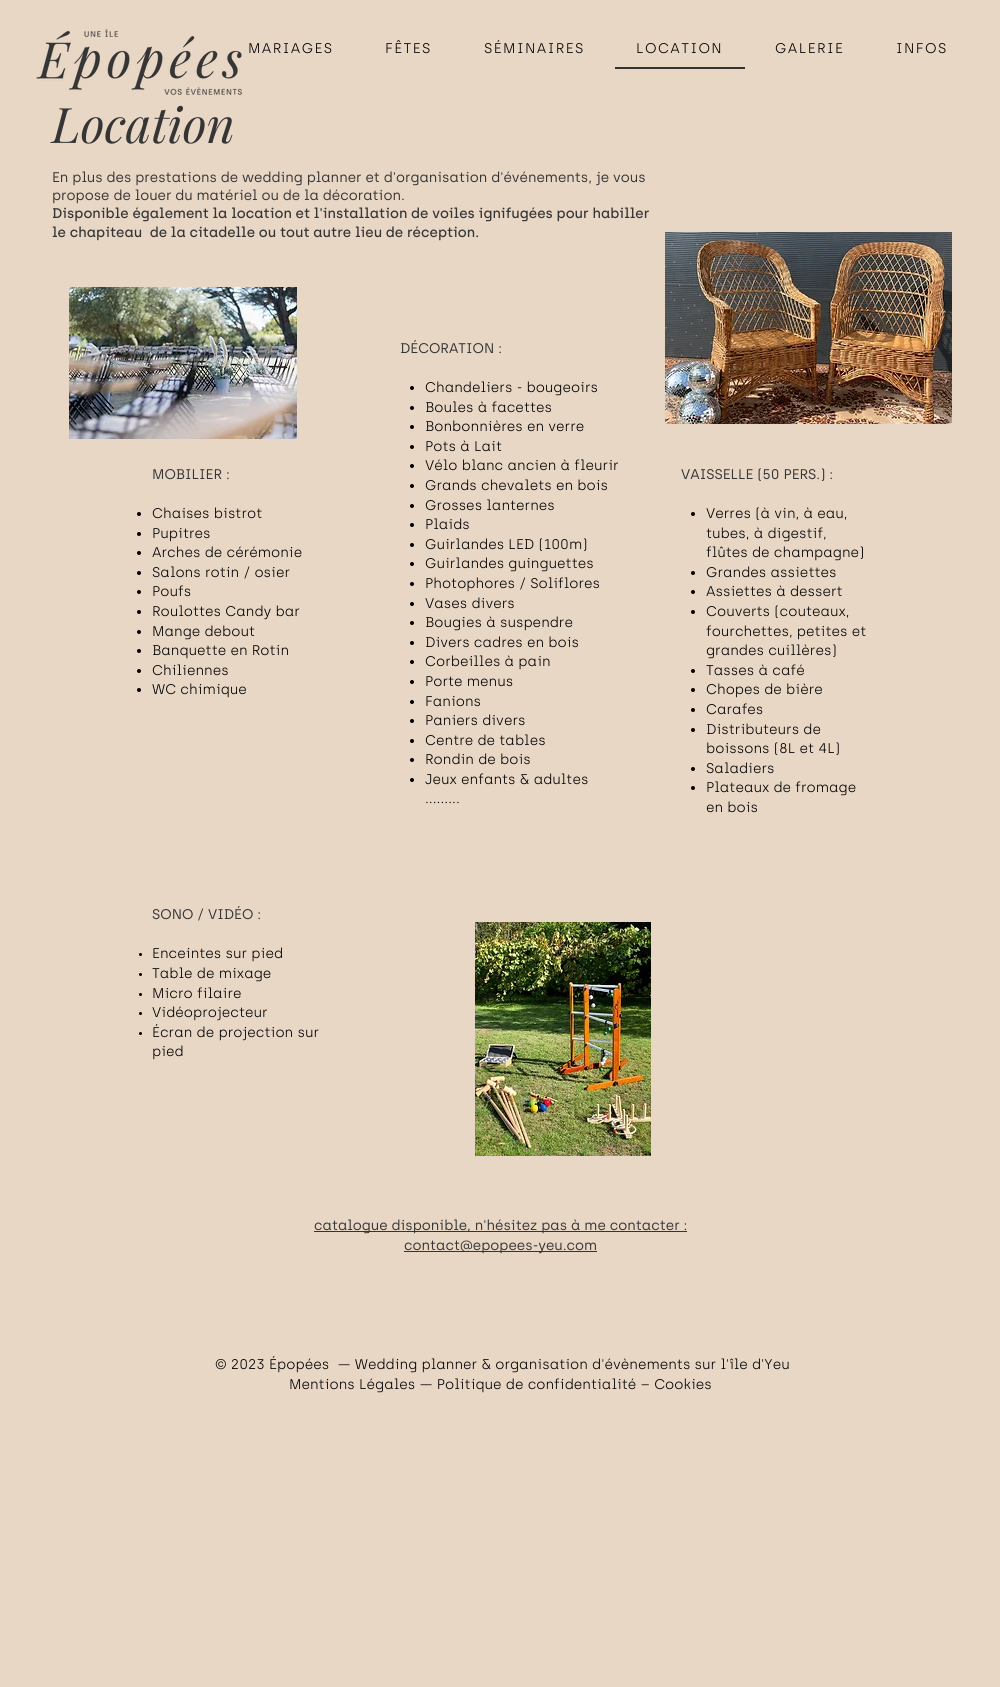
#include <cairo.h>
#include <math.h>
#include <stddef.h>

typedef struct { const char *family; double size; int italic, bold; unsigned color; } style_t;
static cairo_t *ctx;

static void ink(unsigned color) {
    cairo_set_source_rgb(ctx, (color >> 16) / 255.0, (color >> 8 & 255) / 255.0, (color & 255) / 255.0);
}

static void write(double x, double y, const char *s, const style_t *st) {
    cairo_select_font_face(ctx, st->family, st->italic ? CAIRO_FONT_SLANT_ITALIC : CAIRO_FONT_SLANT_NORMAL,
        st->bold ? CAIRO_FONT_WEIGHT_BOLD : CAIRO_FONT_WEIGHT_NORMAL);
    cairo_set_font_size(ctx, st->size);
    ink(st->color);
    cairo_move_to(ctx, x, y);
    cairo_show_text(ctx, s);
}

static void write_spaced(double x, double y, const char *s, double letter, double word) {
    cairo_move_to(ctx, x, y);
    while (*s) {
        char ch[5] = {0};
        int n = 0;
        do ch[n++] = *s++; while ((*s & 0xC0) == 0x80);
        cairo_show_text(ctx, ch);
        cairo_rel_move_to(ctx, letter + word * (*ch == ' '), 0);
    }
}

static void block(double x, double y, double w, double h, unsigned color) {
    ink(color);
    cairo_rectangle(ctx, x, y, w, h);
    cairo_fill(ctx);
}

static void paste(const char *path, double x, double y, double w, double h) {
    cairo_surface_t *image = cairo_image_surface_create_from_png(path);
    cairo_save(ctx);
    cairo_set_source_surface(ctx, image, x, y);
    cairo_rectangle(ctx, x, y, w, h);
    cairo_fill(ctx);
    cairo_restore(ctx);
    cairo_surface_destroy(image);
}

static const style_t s1 = {"Playfair Display", 49, 1, 0, 0x353535};
static const style_t s2 = {"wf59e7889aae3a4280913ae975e", 14, 0, 0, 0x353535};
static const style_t s3 = {"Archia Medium", 14, 0, 0, 0x353535};
static const style_t s4 = {"Archia Light", 14, 0, 0, 0x000000};

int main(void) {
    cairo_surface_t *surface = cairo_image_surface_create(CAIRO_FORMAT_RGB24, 1000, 1687);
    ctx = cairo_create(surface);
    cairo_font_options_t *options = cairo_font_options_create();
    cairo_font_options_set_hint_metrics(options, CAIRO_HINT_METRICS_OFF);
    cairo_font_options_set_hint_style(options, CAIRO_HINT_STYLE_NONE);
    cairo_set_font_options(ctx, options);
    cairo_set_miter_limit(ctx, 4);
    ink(0xe9d7c6);
    cairo_paint(ctx);
    paste("pic1.png", 36, 29, 206, 66);
    cairo_select_font_face(ctx, "Archia Light", CAIRO_FONT_SLANT_NORMAL, CAIRO_FONT_WEIGHT_NORMAL);
    cairo_set_font_size(ctx, 14);
    ink(0x000000);
    write_spaced(248, 53, "MARIAGES", 1.4, 0);
    write_spaced(385, 53, "FÊTES", 1.4, 0);
    write_spaced(484, 53, "SÉMINAIRES", 1.4, 0);
    block(615, 67, 130, 2, 0x333231);
    ink(0x000000);
    write_spaced(636, 53, "LOCATION", 1.4, 0);
    write_spaced(775, 53, "GALERIE", 1.4, 0);
    write_spaced(896, 53, "INFOS", 1.4, 0);
    write(52, 143, "Location", &s1);
    write(52, 182, "En plus des prestations de wedding planner et d'organisation d'événements, je vous", &s2);
    write(52, 200, "propose de louer du matériel ou de la décoration.", &s2);
    write(52, 218, "Disponible également la location et l'installation de voiles ignifugées pour habiller", &s3);
    write(52, 237, "le chapiteau  de la citadelle ou tout autre lieu de réception.", &s3);
    paste("pic2.png", 69, 287, 228, 152);
    write(400, 353, "DÉCORATION :", &s2);
    ink(0x000000);
    cairo_new_path(ctx);
    cairo_arc(ctx, 412, 388, 2, 0, 2 * M_PI);
    cairo_fill(ctx);
    write(425, 392, "Chandeliers - bougeoirs", &s4);
    cairo_new_path(ctx);
    cairo_arc(ctx, 412, 408, 2, 0, 2 * M_PI);
    cairo_fill(ctx);
    write(425, 412, "Boules à facettes", &s4);
    cairo_new_path(ctx);
    cairo_arc(ctx, 412, 427, 2, 0, 2 * M_PI);
    cairo_fill(ctx);
    write(425, 431, "Bonbonnières en verre", &s4);
    cairo_new_path(ctx);
    cairo_arc(ctx, 412, 447, 2, 0, 2 * M_PI);
    cairo_fill(ctx);
    write(425, 451, "Pots à Lait", &s4);
    cairo_new_path(ctx);
    cairo_arc(ctx, 412, 466, 2, 0, 2 * M_PI);
    cairo_fill(ctx);
    write(425, 470, "Vélo blanc ancien à fleurir", &s4);
    cairo_new_path(ctx);
    cairo_arc(ctx, 412, 486, 2, 0, 2 * M_PI);
    cairo_fill(ctx);
    write(425, 490, "Grands chevalets en bois", &s4);
    cairo_new_path(ctx);
    cairo_arc(ctx, 412, 506, 2, 0, 2 * M_PI);
    cairo_fill(ctx);
    write(425, 510, "Grosses lanternes", &s4);
    cairo_new_path(ctx);
    cairo_arc(ctx, 412, 525, 2, 0, 2 * M_PI);
    cairo_fill(ctx);
    write(425, 529, "Plaids", &s4);
    cairo_new_path(ctx);
    cairo_arc(ctx, 412, 545, 2, 0, 2 * M_PI);
    cairo_fill(ctx);
    write(425, 549, "Guirlandes LED (100m)", &s4);
    cairo_new_path(ctx);
    cairo_arc(ctx, 412, 564, 2, 0, 2 * M_PI);
    cairo_fill(ctx);
    write(425, 568, "Guirlandes guinguettes", &s4);
    cairo_new_path(ctx);
    cairo_arc(ctx, 412, 584, 2, 0, 2 * M_PI);
    cairo_fill(ctx);
    write(425, 588, "Photophores / Soliflores", &s4);
    cairo_new_path(ctx);
    cairo_arc(ctx, 412, 604, 2, 0, 2 * M_PI);
    cairo_fill(ctx);
    write(425, 608, "Vases divers", &s4);
    cairo_new_path(ctx);
    cairo_arc(ctx, 412, 623, 2, 0, 2 * M_PI);
    cairo_fill(ctx);
    write(425, 627, "Bougies à suspendre", &s4);
    cairo_new_path(ctx);
    cairo_arc(ctx, 412, 643, 2, 0, 2 * M_PI);
    cairo_fill(ctx);
    write(425, 647, "Divers cadres en bois", &s4);
    cairo_new_path(ctx);
    cairo_arc(ctx, 412, 662, 2, 0, 2 * M_PI);
    cairo_fill(ctx);
    write(425, 666, "Corbeilles à pain", &s4);
    cairo_new_path(ctx);
    cairo_arc(ctx, 412, 682, 2, 0, 2 * M_PI);
    cairo_fill(ctx);
    write(425, 686, "Porte menus", &s4);
    cairo_new_path(ctx);
    cairo_arc(ctx, 412, 702, 2, 0, 2 * M_PI);
    cairo_fill(ctx);
    write(425, 706, "Fanions", &s4);
    cairo_new_path(ctx);
    cairo_arc(ctx, 412, 721, 2, 0, 2 * M_PI);
    cairo_fill(ctx);
    write(425, 725, "Paniers divers", &s4);
    cairo_new_path(ctx);
    cairo_arc(ctx, 412, 741, 2, 0, 2 * M_PI);
    cairo_fill(ctx);
    write(425, 745, "Centre de tables", &s4);
    cairo_new_path(ctx);
    cairo_arc(ctx, 412, 760, 2, 0, 2 * M_PI);
    cairo_fill(ctx);
    write(425, 764, "Rondin de bois", &s4);
    cairo_new_path(ctx);
    cairo_arc(ctx, 412, 780, 2, 0, 2 * M_PI);
    cairo_fill(ctx);
    write(425, 784, "Jeux enfants & adultes", &s4);
    write(425, 803, ".........", &s4);
    paste("pic3.png", 665, 232, 287, 192);
    write(152, 479, "MOBILIER :", &s2);
    ink(0x000000);
    cairo_new_path(ctx);
    cairo_arc(ctx, 139, 514, 2, 0, 2 * M_PI);
    cairo_fill(ctx);
    write(152, 518, "Chaises bistrot", &s4);
    cairo_new_path(ctx);
    cairo_arc(ctx, 139, 534, 2, 0, 2 * M_PI);
    cairo_fill(ctx);
    write(152, 538, "Pupitres", &s4);
    cairo_new_path(ctx);
    cairo_arc(ctx, 139, 553, 2, 0, 2 * M_PI);
    cairo_fill(ctx);
    write(152, 557, "Arches de cérémonie", &s4);
    cairo_new_path(ctx);
    cairo_arc(ctx, 139, 573, 2, 0, 2 * M_PI);
    cairo_fill(ctx);
    write(152, 577, "Salons rotin / osier", &s4);
    cairo_new_path(ctx);
    cairo_arc(ctx, 139, 592, 2, 0, 2 * M_PI);
    cairo_fill(ctx);
    write(152, 596, "Poufs", &s4);
    cairo_new_path(ctx);
    cairo_arc(ctx, 139, 612, 2, 0, 2 * M_PI);
    cairo_fill(ctx);
    write(152, 616, "Roulottes Candy bar", &s4);
    cairo_new_path(ctx);
    cairo_arc(ctx, 139, 632, 2, 0, 2 * M_PI);
    cairo_fill(ctx);
    write(152, 636, "Mange debout", &s4);
    cairo_new_path(ctx);
    cairo_arc(ctx, 139, 651, 2, 0, 2 * M_PI);
    cairo_fill(ctx);
    write(152, 655, "Banquette en Rotin", &s4);
    cairo_new_path(ctx);
    cairo_arc(ctx, 139, 671, 2, 0, 2 * M_PI);
    cairo_fill(ctx);
    write(152, 675, "Chiliennes", &s4);
    cairo_new_path(ctx);
    cairo_arc(ctx, 139, 690, 2, 0, 2 * M_PI);
    cairo_fill(ctx);
    write(152, 694, "WC chimique", &s4);
    write(681, 479, "VAISSELLE (50 PERS.) :", &s2);
    ink(0x000000);
    cairo_new_path(ctx);
    cairo_arc(ctx, 693, 514, 2, 0, 2 * M_PI);
    cairo_fill(ctx);
    write(706, 518, "Verres (à vin, à eau,", &s4);
    write(706, 538, "tubes, à digestif,", &s4);
    write(706, 557, "flûtes de champagne)", &s4);
    cairo_new_path(ctx);
    cairo_arc(ctx, 693, 573, 2, 0, 2 * M_PI);
    cairo_fill(ctx);
    write(706, 577, "Grandes assiettes", &s4);
    cairo_new_path(ctx);
    cairo_arc(ctx, 693, 592, 2, 0, 2 * M_PI);
    cairo_fill(ctx);
    write(706, 596, "Assiettes à dessert", &s4);
    cairo_new_path(ctx);
    cairo_arc(ctx, 693, 612, 2, 0, 2 * M_PI);
    cairo_fill(ctx);
    write(706, 616, "Couverts (couteaux,", &s4);
    write(706, 636, "fourchettes, petites et", &s4);
    write(706, 655, "grandes cuillères)", &s4);
    cairo_new_path(ctx);
    cairo_arc(ctx, 693, 671, 2, 0, 2 * M_PI);
    cairo_fill(ctx);
    write(706, 675, "Tasses à café", &s4);
    cairo_new_path(ctx);
    cairo_arc(ctx, 693, 690, 2, 0, 2 * M_PI);
    cairo_fill(ctx);
    write(706, 694, "Chopes de bière", &s4);
    cairo_new_path(ctx);
    cairo_arc(ctx, 693, 710, 2, 0, 2 * M_PI);
    cairo_fill(ctx);
    write(706, 714, "Carafes", &s4);
    cairo_new_path(ctx);
    cairo_arc(ctx, 693, 730, 2, 0, 2 * M_PI);
    cairo_fill(ctx);
    write(706, 734, "Distributeurs de", &s4);
    write(706, 753, "boissons (8L et 4L)", &s4);
    cairo_new_path(ctx);
    cairo_arc(ctx, 693, 769, 2, 0, 2 * M_PI);
    cairo_fill(ctx);
    write(706, 773, "Saladiers", &s4);
    cairo_new_path(ctx);
    cairo_arc(ctx, 693, 788, 2, 0, 2 * M_PI);
    cairo_fill(ctx);
    write(706, 792, "Plateaux de fromage", &s4);
    write(706, 812, "en bois", &s4);
    write(152, 919, "SONO / VIDÉO :", &s2);
    ink(0x000000);
    cairo_new_path(ctx);
    cairo_arc(ctx, 140.5, 954.5, 1.5, 0, 2 * M_PI);
    cairo_fill(ctx);
    write(152, 958, "Enceintes sur pied", &s4);
    cairo_new_path(ctx);
    cairo_arc(ctx, 140.5, 974.5, 1.5, 0, 2 * M_PI);
    cairo_fill(ctx);
    write(152, 978, "Table de mixage", &s4);
    cairo_new_path(ctx);
    cairo_arc(ctx, 140.5, 994.5, 1.5, 0, 2 * M_PI);
    cairo_fill(ctx);
    write(152, 998, "Micro filaire", &s4);
    cairo_new_path(ctx);
    cairo_arc(ctx, 140.5, 1013.5, 1.5, 0, 2 * M_PI);
    cairo_fill(ctx);
    write(152, 1017, "Vidéoprojecteur", &s4);
    cairo_new_path(ctx);
    cairo_arc(ctx, 140.5, 1033.5, 1.5, 0, 2 * M_PI);
    cairo_fill(ctx);
    write(152, 1037, "Écran de projection sur", &s4);
    write(152, 1056, "pied", &s4);
    paste("pic4.png", 475, 922, 176, 234);
    block(314, 1231, 373, 1, 0x343434);
    write(314, 1230, "catalogue disponible, n'hésitez pas à me contacter :", &s2);
    block(404, 1251, 193, 1, 0x343434);
    write(404, 1250, "contact@epopees-yeu.com", &s2);
    write(215, 1369, "© 2023 Épopées  — Wedding planner & organisation d'évènements sur l'île d'Yeu", &s4);
    write(289, 1389, "Mentions Légales — Politique de confidentialité – Cookies", &s4);
    cairo_surface_write_to_png(surface, "screenshot.png");
    cairo_font_options_destroy(options);
    cairo_destroy(ctx);
    cairo_surface_destroy(surface);
    return 0;
}
